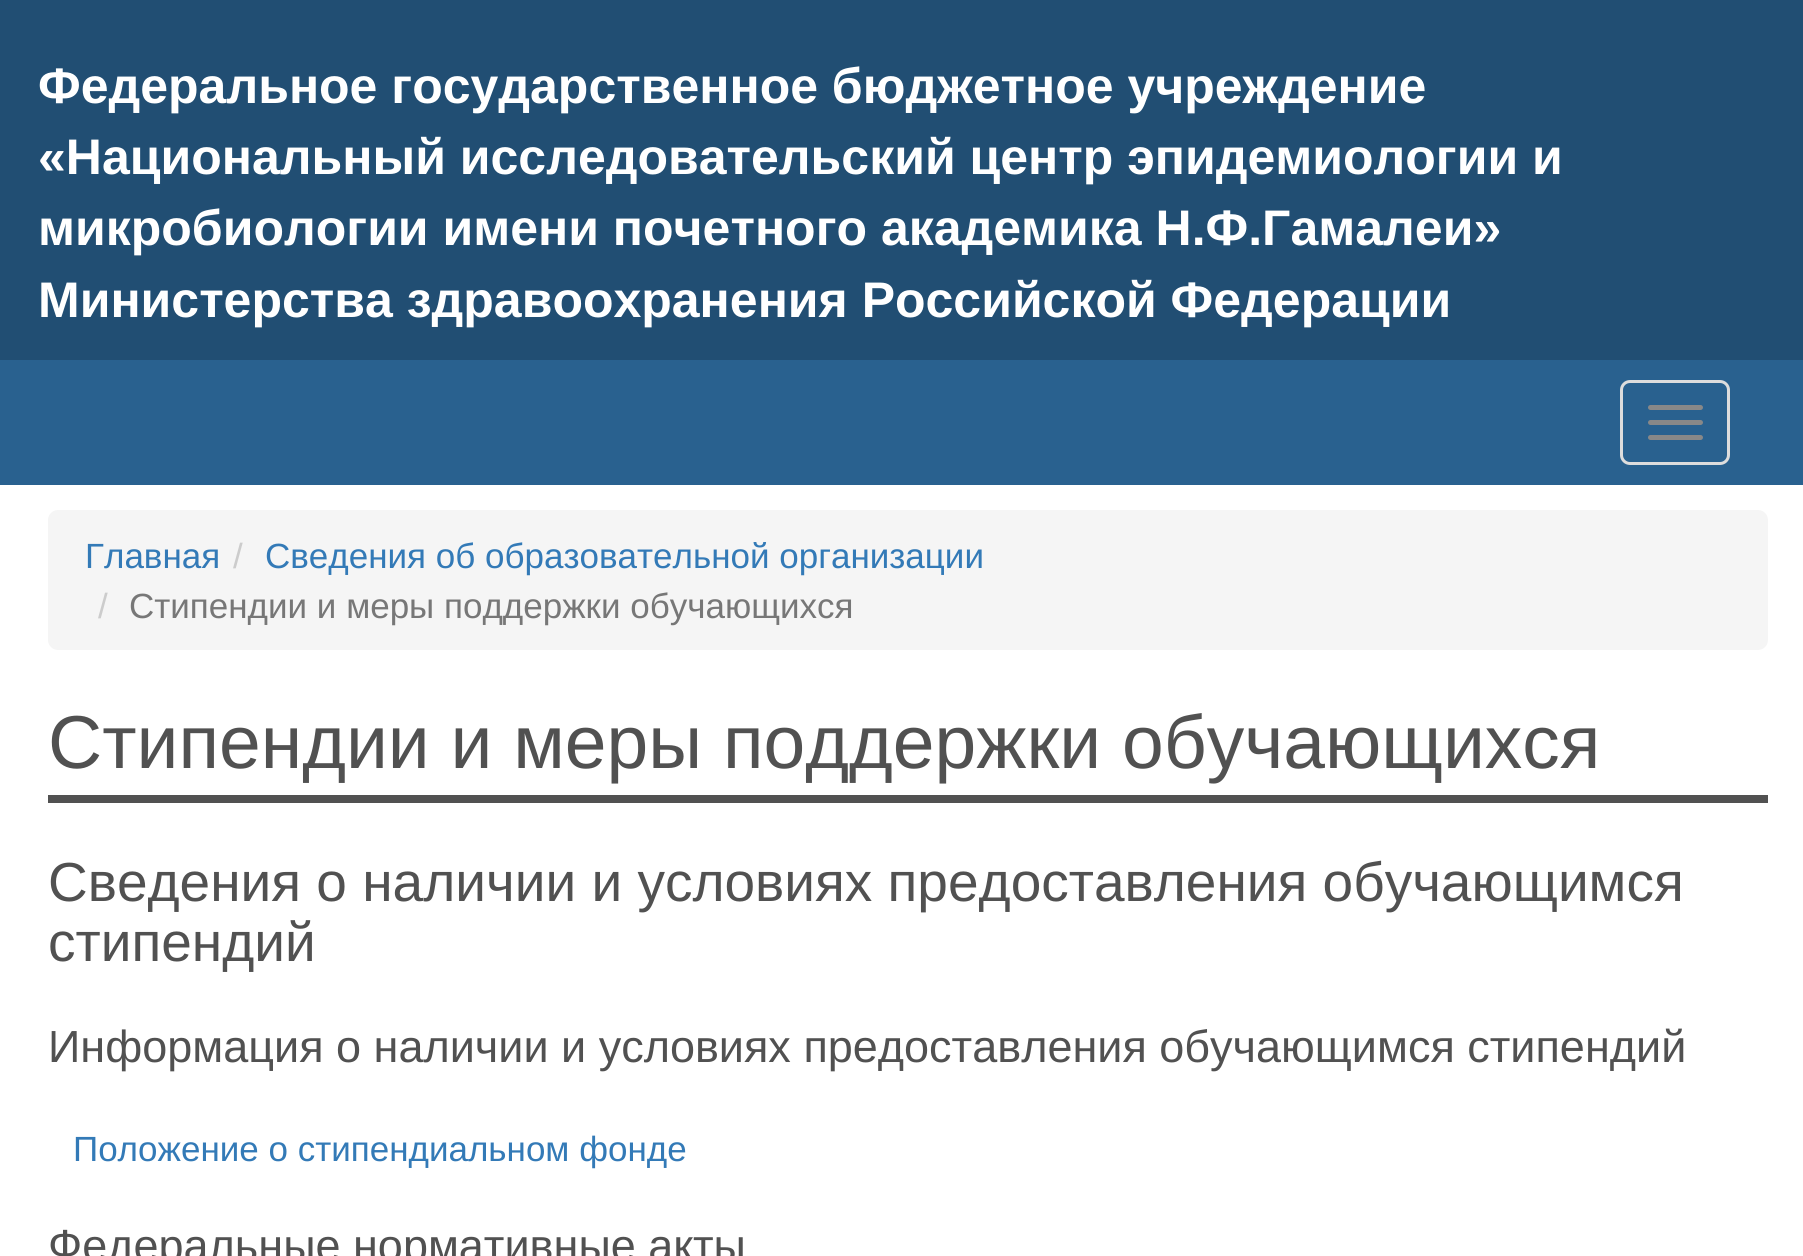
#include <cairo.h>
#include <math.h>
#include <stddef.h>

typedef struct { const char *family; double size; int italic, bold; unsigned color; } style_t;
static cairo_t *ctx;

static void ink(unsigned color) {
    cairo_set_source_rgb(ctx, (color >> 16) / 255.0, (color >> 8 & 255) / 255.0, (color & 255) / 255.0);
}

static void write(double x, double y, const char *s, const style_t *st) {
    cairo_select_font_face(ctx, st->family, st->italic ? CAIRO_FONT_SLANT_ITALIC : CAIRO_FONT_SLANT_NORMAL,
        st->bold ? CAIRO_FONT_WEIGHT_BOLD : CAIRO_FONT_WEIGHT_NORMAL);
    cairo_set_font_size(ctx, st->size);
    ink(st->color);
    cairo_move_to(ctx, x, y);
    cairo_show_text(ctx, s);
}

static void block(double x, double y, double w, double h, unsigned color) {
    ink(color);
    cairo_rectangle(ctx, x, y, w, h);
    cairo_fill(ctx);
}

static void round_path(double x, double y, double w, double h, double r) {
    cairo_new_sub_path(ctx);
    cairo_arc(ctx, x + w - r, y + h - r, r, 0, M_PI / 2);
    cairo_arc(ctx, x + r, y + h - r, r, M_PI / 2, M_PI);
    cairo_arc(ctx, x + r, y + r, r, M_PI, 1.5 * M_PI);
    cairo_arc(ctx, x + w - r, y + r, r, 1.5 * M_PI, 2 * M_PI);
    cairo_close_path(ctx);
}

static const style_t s1 = {"Liberation Sans", 50, 0, 1, 0xffffff};
static const style_t s2 = {"Liberation Sans", 35, 0, 0, 0x337ab7};
static const style_t s3 = {"Liberation Sans", 35, 0, 0, 0xcccccc};
static const style_t s4 = {"Liberation Sans", 35, 0, 0, 0x777777};
static const style_t s5 = {"Liberation Sans", 75, 0, 0, 0x515151};
static const style_t s6 = {"Liberation Sans", 55, 0, 0, 0x515151};
static const style_t s7 = {"Liberation Sans", 45, 0, 0, 0x515151};

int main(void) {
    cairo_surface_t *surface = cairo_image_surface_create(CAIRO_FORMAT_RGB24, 1803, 1256);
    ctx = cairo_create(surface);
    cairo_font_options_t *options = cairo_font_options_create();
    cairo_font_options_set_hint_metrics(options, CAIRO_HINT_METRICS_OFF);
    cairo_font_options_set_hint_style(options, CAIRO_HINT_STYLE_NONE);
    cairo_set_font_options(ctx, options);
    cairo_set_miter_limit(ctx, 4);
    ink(0xffffff);
    cairo_paint(ctx);
    block(0, 0, 1803, 360, 0x214e73);
    write(38, 103, "Федеральное государственное бюджетное учреждение", &s1);
    write(38, 174, "«Национальный исследовательский центр эпидемиологии и", &s1);
    write(38, 245, "микробиологии имени почетного академика Н.Ф.Гамалеи»", &s1);
    write(38, 317, "Министерства здравоохранения Российской Федерации", &s1);
    block(0, 360, 1803, 125, 0x29618f);
    round_path(1621.5, 381.5, 107, 82, 8.5);
    ink(0xdddddd);
    cairo_set_line_width(ctx, 3);
    cairo_stroke(ctx);
    ink(0x888888);
    round_path(1648, 405, 55, 5, 2.5);
    cairo_fill(ctx);
    round_path(1648, 420, 55, 5, 2.5);
    cairo_fill(ctx);
    round_path(1648, 435, 55, 5, 2.5);
    cairo_fill(ctx);
    ink(0xf5f5f5);
    round_path(48, 510, 1720, 140, 10);
    cairo_fill(ctx);
    write(85, 568, "Главная", &s2);
    write(233, 568, "/", &s3);
    write(265, 568, "Сведения об образовательной организации", &s2);
    write(98, 618, "/", &s3);
    write(129, 618, "Стипендии и меры поддержки обучающихся", &s4);
    block(48, 795, 1720, 8, 0x515151);
    write(48, 768, "Стипендии и меры поддержки обучающихся", &s5);
    write(48, 901, "Сведения о наличии и условиях предоставления обучающимся", &s6);
    write(48, 961, "стипендий", &s6);
    write(48, 1062, "Информация о наличии и условиях предоставления обучающимся стипендий", &s7);
    write(73, 1161, "Положение о стипендиальном фонде", &s2);
    write(48, 1261, "Федеральные нормативные акты", &s7);
    cairo_surface_write_to_png(surface, "screenshot.png");
    cairo_font_options_destroy(options);
    cairo_destroy(ctx);
    cairo_surface_destroy(surface);
    return 0;
}
